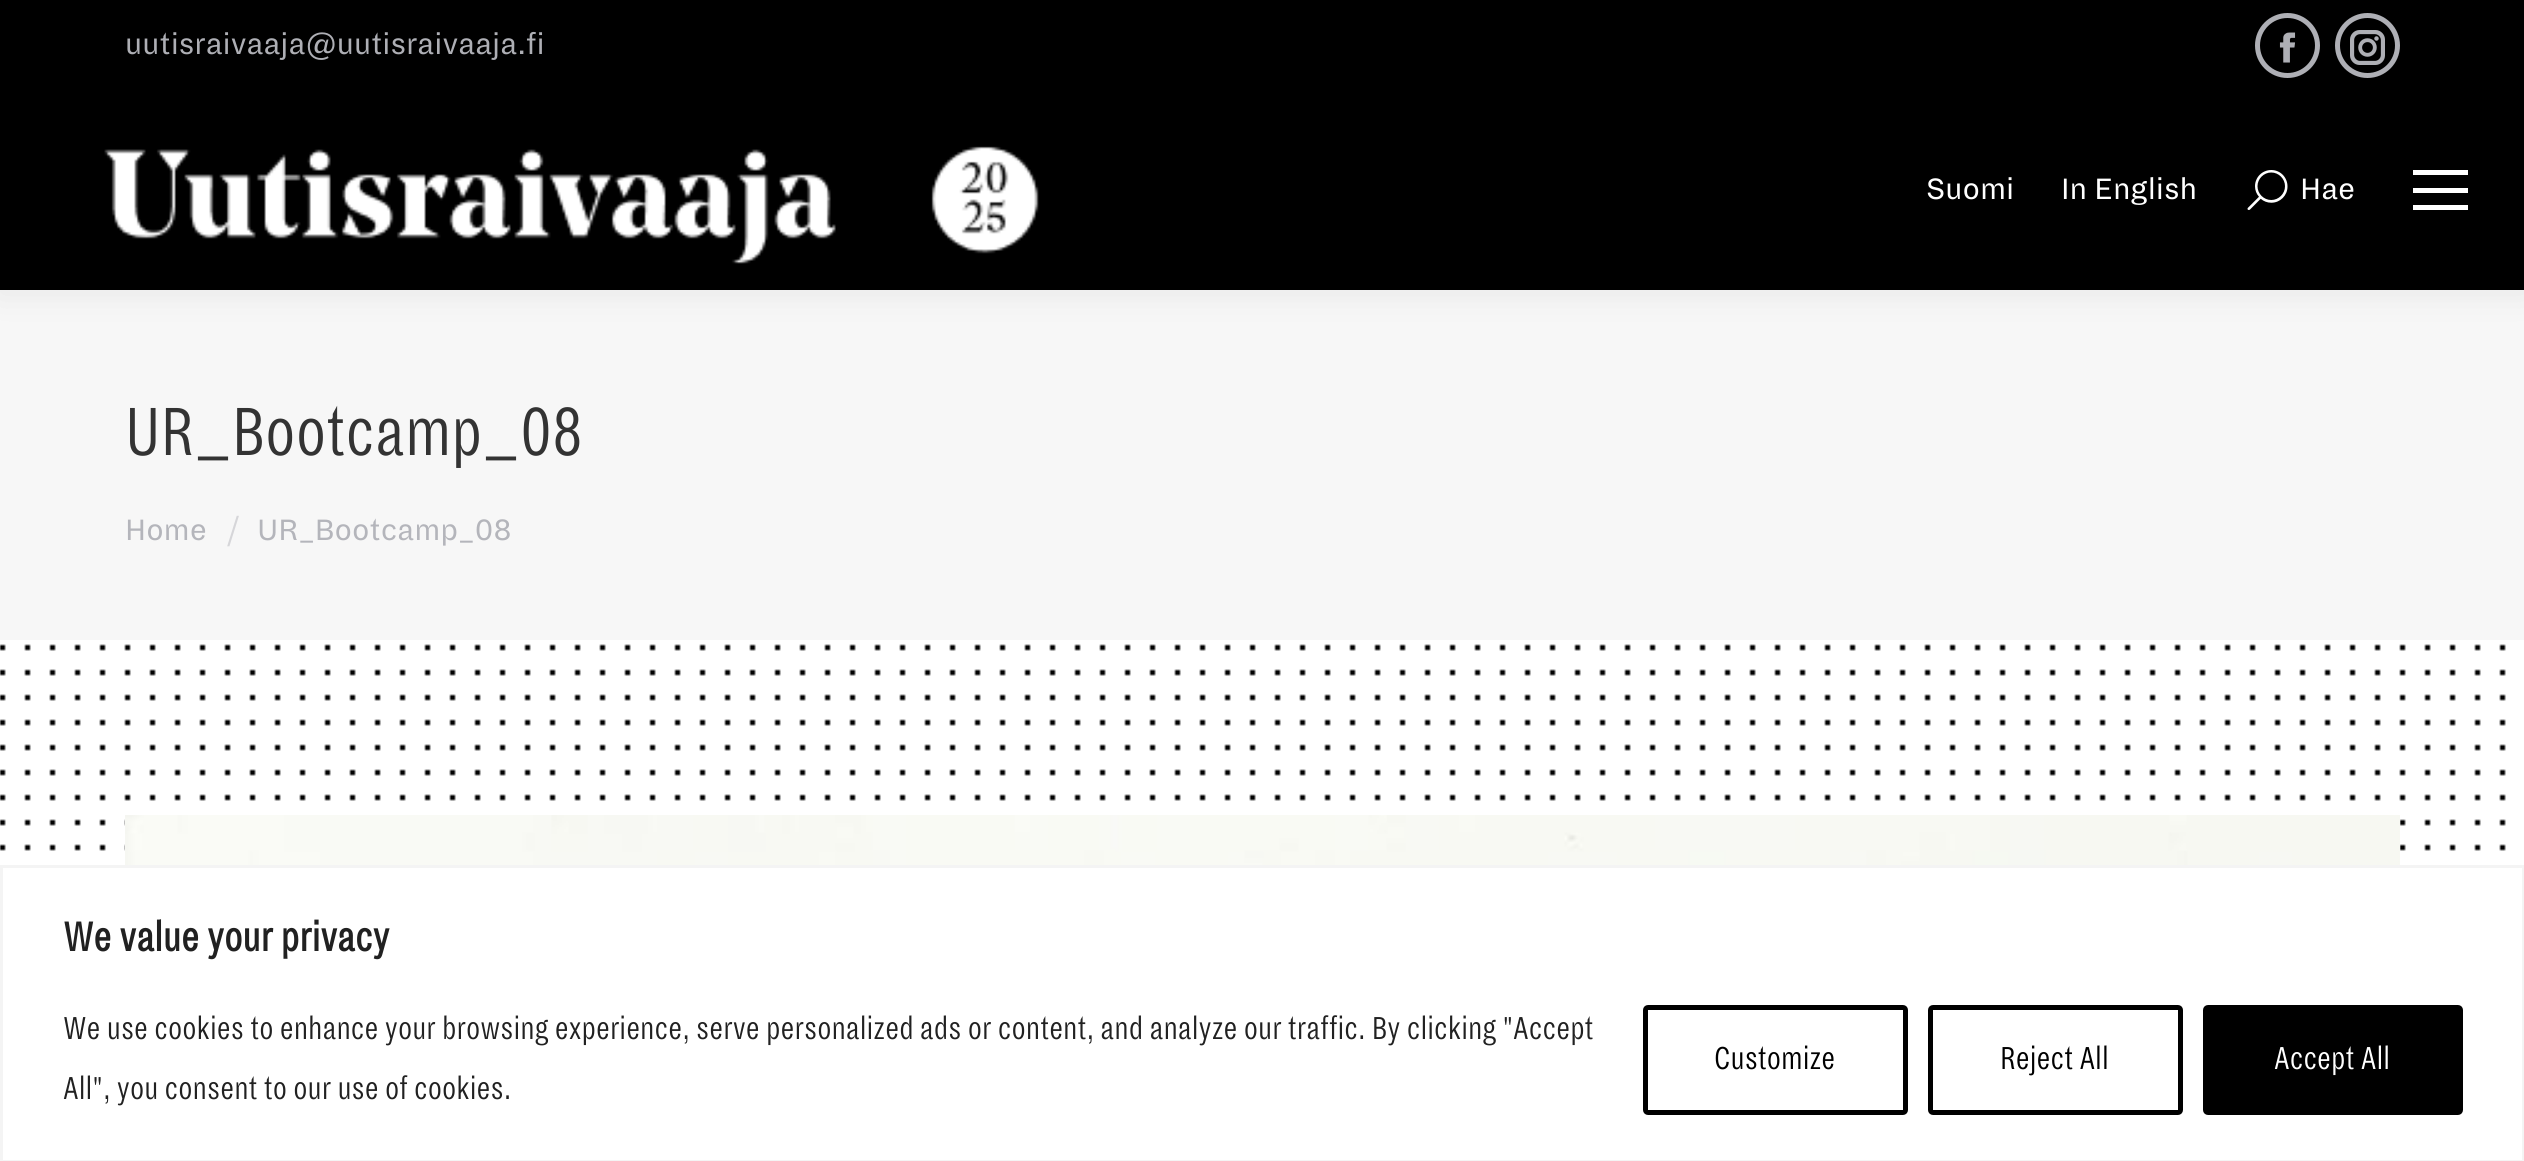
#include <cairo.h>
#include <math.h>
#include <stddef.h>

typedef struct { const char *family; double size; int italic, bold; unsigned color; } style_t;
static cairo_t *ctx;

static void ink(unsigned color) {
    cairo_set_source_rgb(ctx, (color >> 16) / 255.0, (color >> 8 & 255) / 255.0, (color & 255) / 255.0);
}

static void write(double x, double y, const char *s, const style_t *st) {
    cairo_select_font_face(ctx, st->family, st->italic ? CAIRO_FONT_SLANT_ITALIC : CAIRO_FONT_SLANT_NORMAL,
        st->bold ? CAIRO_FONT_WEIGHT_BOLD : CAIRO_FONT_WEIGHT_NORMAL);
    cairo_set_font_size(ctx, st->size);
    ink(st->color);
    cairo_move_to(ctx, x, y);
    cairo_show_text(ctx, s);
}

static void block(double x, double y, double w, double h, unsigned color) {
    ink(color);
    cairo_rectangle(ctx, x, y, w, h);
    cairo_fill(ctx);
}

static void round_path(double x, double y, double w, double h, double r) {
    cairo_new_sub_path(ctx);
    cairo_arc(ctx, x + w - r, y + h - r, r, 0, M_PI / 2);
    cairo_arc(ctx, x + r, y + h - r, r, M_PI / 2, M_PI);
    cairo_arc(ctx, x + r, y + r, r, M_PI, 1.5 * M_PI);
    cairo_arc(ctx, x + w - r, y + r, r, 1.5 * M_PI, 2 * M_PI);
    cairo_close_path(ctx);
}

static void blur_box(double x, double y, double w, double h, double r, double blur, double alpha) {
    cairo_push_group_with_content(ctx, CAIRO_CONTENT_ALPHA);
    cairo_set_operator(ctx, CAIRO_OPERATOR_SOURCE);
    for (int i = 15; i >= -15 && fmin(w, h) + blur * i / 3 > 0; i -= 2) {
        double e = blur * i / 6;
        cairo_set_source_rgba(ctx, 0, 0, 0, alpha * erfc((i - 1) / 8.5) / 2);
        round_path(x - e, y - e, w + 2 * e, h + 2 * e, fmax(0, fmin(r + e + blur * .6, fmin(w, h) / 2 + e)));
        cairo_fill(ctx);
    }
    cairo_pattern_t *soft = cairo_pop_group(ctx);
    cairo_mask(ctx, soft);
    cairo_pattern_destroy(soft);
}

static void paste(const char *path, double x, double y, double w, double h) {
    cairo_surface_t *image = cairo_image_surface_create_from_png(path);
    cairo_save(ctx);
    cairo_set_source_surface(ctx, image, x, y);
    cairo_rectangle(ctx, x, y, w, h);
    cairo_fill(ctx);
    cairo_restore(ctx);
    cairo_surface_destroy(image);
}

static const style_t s1 = {"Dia", 32.5, 0, 0, 0xaeafb5};
static const style_t s2 = {"Dia", 32.5, 0, 0, 0xffffff};
static const style_t s3 = {"Dia Light", 75, 0, 0, 0x333333};
static const style_t s4 = {"Dia", 32.5, 0, 0, 0xb4b5bb};
static const style_t s5 = {"Dia", 32.5, 0, 0, 0xd6d6d9};
static const style_t s6 = {"Dia", 45, 0, 1, 0x212121};
static const style_t s7 = {"Dia Light", 35, 0, 0, 0x212121};
static const style_t s8 = {"Dia Light", 35, 0, 0, 0x000000};
static const style_t s9 = {"Dia Light", 35, 0, 0, 0xffffff};

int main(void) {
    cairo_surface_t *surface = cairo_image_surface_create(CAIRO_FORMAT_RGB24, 2524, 1161);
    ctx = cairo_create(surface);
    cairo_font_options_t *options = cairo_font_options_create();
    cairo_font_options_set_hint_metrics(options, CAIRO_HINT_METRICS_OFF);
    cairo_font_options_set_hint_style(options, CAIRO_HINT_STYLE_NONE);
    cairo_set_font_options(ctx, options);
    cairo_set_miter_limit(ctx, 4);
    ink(0xffffff);
    cairo_paint(ctx);
    paste("pic1.png", 0, 644, 2506, 207);
    block(0, 290, 2524, 350, 0xf7f7f7);
    ink(0x000000);
    blur_box(-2, -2, 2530, 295, 0, 19, 0.07);
    block(0, 0, 2524, 290, 0x000000);
    write(125, 54, "uutisraivaaja@uutisraivaaja.fi", &s1);
    cairo_new_path(ctx);
    cairo_arc(ctx, 2287.5, 45.5, 30, 0, 2 * M_PI);
    cairo_set_line_width(ctx, 5);
    cairo_stroke(ctx);
    paste("pic2.png", 2279, 32, 17, 31);
    cairo_arc(ctx, 2367.5, 45.5, 30, 0, 2 * M_PI);
    cairo_stroke(ctx);
    paste("pic3.png", 2350, 30, 35, 35);
    paste("pic4.png", 104, 146, 935, 118);
    write(1926, 199, "Suomi", &s2);
    write(2061, 199, "In English", &s2);
    paste("pic5.png", 2247, 170, 41, 40);
    write(2300, 199, "Hae", &s2);
    block(2413, 170, 55, 5, 0xffffff);
    block(2413, 188, 55, 5, 0xffffff);
    block(2413, 205, 55, 5, 0xffffff);
    write(125, 455, "UR_Bootcamp_08", &s3);
    write(125, 540, "Home", &s4);
    write(227, 540, "/", &s5);
    write(257, 540, "UR_Bootcamp_08", &s4);
    paste("pic6.png", 125, 815, 2275, 50);
    cairo_rectangle(ctx, 1.5, 866.5, 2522, 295);
    ink(0xf4f4f4);
    cairo_set_line_width(ctx, 3);
    cairo_stroke(ctx);
    write(63, 951, "We value your privacy", &s6);
    write(63, 1039, "We use cookies to enhance your browsing experience, serve personalized ads or content, and analyze our traffic. By clicking \"Accept", &s7);
    write(63, 1099, "All\", you consent to our use of cookies.", &s7);
    round_path(1645.5, 1007.5, 260, 105, 2.5);
    ink(0x000000);
    cairo_set_line_width(ctx, 5);
    cairo_stroke(ctx);
    write(1714, 1069, "Customize", &s8);
    round_path(1930.5, 1007.5, 250, 105, 2.5);
    cairo_stroke(ctx);
    write(2000, 1069, "Reject All", &s8);
    round_path(2205.5, 1007.5, 255, 105, 2.5);
    cairo_fill_preserve(ctx);
    cairo_stroke(ctx);
    write(2274, 1069, "Accept All", &s9);
    cairo_surface_write_to_png(surface, "screenshot.png");
    cairo_font_options_destroy(options);
    cairo_destroy(ctx);
    cairo_surface_destroy(surface);
    return 0;
}
